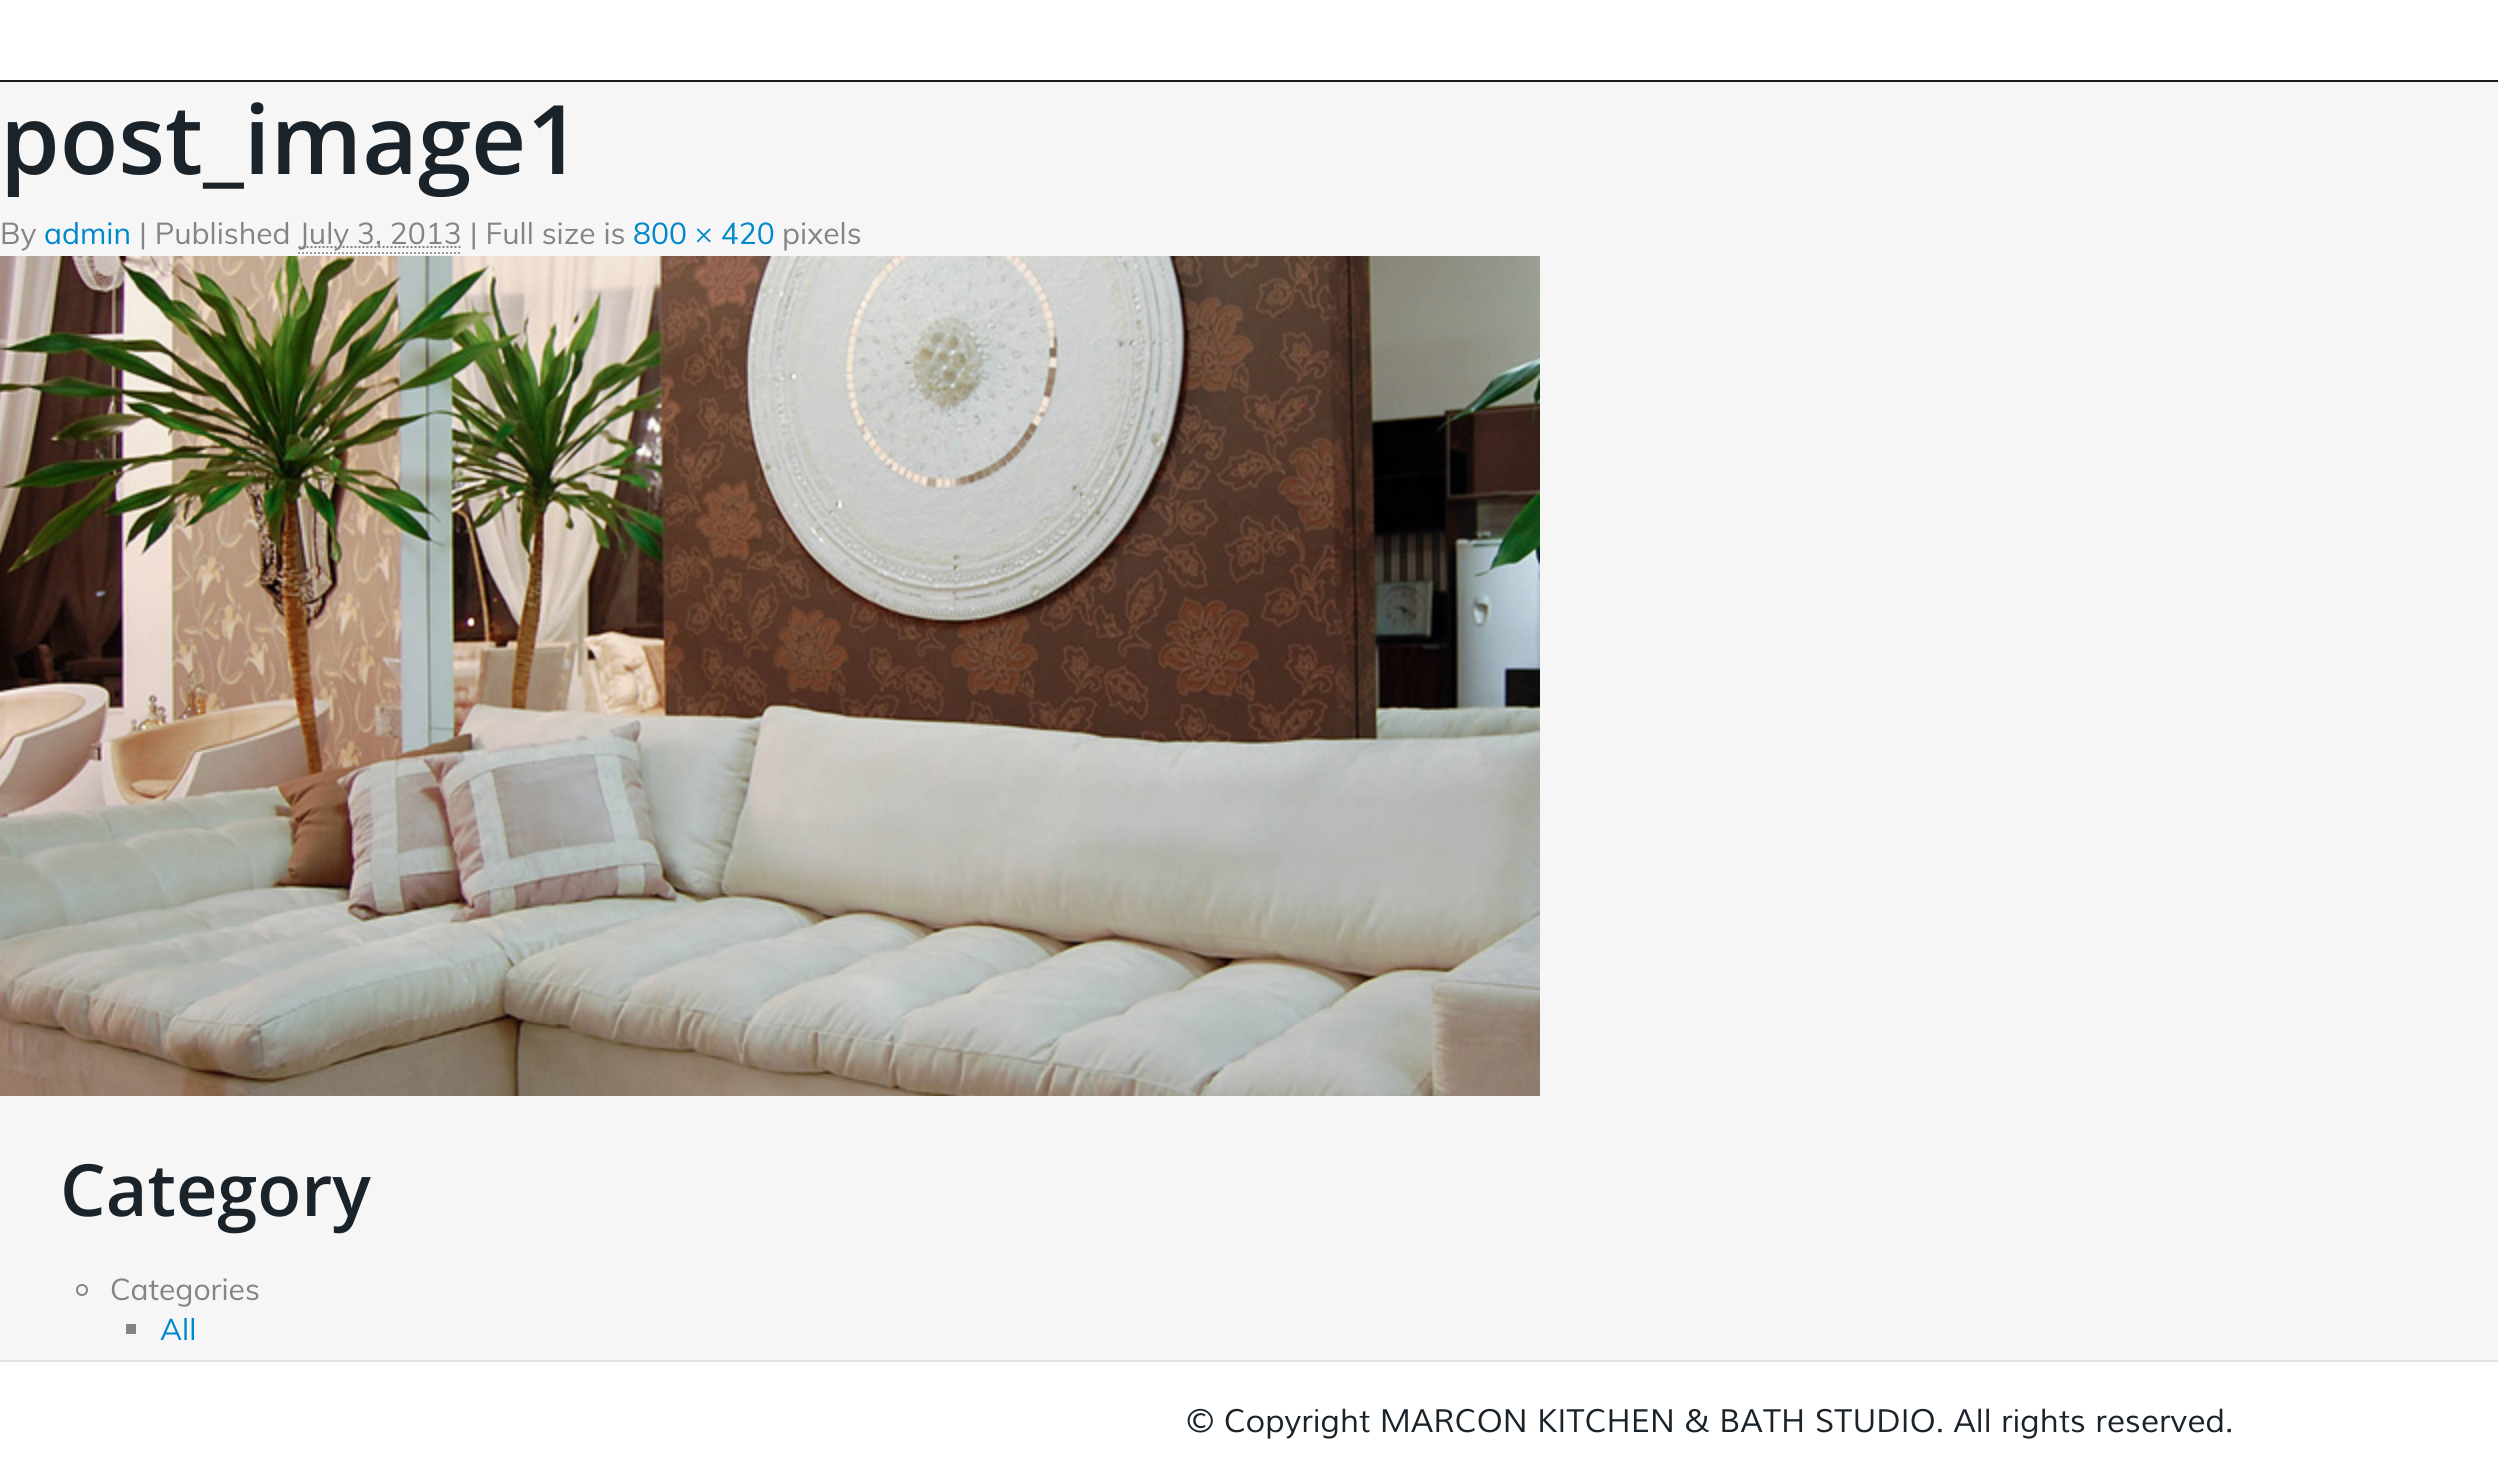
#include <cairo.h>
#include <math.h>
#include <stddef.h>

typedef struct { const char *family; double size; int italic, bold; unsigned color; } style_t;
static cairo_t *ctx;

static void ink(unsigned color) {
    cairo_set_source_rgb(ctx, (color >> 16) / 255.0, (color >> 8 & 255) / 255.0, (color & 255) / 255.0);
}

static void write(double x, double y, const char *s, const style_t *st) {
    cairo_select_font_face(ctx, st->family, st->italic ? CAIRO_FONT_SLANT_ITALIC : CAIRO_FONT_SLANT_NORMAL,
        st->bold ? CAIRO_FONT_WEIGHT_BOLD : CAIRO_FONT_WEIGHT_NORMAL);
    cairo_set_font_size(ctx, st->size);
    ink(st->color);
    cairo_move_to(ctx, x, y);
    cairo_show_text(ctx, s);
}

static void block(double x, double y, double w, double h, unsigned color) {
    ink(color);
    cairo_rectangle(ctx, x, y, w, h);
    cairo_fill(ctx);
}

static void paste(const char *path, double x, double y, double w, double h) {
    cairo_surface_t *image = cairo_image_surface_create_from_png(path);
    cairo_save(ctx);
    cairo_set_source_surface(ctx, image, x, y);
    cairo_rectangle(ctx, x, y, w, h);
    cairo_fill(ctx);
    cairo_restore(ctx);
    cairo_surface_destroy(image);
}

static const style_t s1 = {"Open Sans SemiBold", 96, 0, 0, 0x1b232a};
static const style_t s2 = {"Muli", 30, 0, 0, 0x848484};
static const style_t s3 = {"Muli", 30, 0, 0, 0x0088cc};
static const style_t s4 = {"Open Sans SemiBold", 72, 0, 0, 0x1b232a};
static const style_t s5 = {"Muli", 32, 1, 0, 0x1b232a};

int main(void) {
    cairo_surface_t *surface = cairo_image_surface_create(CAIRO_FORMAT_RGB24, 2498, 1481);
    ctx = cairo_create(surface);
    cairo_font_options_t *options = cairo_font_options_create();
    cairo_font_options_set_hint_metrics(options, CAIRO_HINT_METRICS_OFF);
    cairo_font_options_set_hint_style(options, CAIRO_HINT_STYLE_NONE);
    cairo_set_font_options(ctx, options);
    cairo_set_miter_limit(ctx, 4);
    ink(0xf6f6f6);
    cairo_paint(ctx);
    block(0, 80, 2498, 2, 0x1b1b1b);
    block(0, 0, 2498, 80, 0xffffff);
    write(0, 174, "post_image1", &s1);
    write(0, 244, "By", &s2);
    write(44, 244, "admin", &s3);
    write(139, 244, "| Published", &s2);
    cairo_new_path(ctx);
    cairo_move_to(ctx, 298.5, 247);
    cairo_line_to(ctx, 461.5, 247);
    cairo_set_dash(ctx, (double[]){2, 2}, 2, 0);
    cairo_stroke(ctx);
    write(299, 244, "July 3, 2013 | Full size is", &s2);
    cairo_new_path(ctx);
    cairo_move_to(ctx, 298, 253);
    cairo_line_to(ctx, 462, 253);
    ink(0x999999);
    cairo_stroke(ctx);
    write(633, 244, "800 × 420", &s3);
    write(782, 244, "pixels", &s2);
    paste("pic1.png", 0, 256, 1540, 840);
    write(60, 1216, "Category", &s4);
    cairo_new_path(ctx);
    cairo_arc(ctx, 82, 1290, 5, 0, 2 * M_PI);
    ink(0x848484);
    cairo_set_dash(ctx, NULL, 0, 0);
    cairo_stroke(ctx);
    write(110, 1300, "Categories", &s2);
    block(126, 1324, 10, 10, 0x848484);
    write(160, 1340, "All", &s3);
    block(0, 1362, 2498, 119, 0xffffff);
    block(0, 1360, 2498, 2, 0xe2e2e2);
    write(1186, 1432, "© Copyright MARCON KITCHEN & BATH STUDIO. All rights reserved.", &s5);
    cairo_surface_write_to_png(surface, "screenshot.png");
    cairo_font_options_destroy(options);
    cairo_destroy(ctx);
    cairo_surface_destroy(surface);
    return 0;
}
